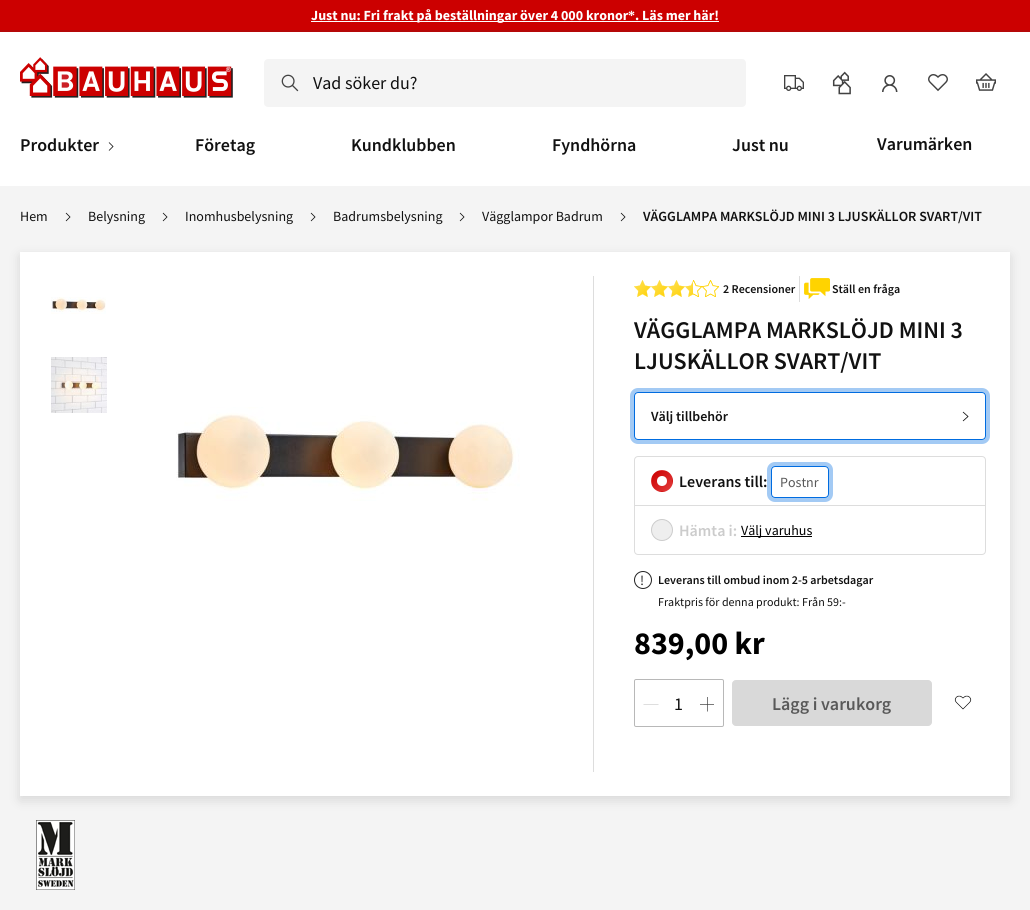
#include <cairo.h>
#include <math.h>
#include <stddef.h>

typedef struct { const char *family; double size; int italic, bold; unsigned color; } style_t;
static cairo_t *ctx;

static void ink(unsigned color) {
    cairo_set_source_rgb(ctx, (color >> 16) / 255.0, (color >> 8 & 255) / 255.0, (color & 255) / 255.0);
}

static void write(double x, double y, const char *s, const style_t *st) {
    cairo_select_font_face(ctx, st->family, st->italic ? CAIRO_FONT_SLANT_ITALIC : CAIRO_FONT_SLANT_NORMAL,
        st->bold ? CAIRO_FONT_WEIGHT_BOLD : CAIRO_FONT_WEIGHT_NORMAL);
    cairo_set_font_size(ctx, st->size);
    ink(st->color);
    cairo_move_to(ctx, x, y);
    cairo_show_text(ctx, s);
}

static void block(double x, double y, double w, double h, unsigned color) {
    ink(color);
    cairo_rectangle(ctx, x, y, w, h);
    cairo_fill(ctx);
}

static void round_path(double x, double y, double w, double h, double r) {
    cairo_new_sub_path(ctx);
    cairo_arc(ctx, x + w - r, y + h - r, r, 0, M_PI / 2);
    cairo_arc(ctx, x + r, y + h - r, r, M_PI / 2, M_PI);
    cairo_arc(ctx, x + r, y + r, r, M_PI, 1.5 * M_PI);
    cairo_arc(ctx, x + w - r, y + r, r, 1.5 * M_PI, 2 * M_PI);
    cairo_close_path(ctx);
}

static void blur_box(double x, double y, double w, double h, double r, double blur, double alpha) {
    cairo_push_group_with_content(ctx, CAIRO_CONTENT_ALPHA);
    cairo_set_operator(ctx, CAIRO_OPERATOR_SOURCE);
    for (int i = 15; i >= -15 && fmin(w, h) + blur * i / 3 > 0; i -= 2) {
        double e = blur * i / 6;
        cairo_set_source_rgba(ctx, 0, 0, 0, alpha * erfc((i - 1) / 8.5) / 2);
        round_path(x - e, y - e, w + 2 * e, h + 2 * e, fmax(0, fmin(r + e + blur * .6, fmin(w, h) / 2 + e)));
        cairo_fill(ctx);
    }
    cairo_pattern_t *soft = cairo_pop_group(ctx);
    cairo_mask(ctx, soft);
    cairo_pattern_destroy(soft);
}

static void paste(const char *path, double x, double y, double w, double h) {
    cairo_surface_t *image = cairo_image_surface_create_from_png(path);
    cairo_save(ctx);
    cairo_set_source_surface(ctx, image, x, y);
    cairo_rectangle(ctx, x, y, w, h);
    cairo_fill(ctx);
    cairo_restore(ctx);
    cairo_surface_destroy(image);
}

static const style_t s1 = {"Source Sans Pro", 14, 0, 1, 0xffffff};
static const style_t s2 = {"Liberation Serif", 14, 0, 1, 0xffffff};
static const style_t s3 = {"Source Sans Pro", 18, 0, 0, 0x111111};
static const style_t s4 = {"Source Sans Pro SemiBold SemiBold", 18, 0, 0, 0x111111};
static const style_t s5 = {"Source Sans Pro", 14, 0, 0, 0x111111};
static const style_t s6 = {"Source Sans Pro SemiBold SemiBold", 14, 0, 0, 0x111111};
static const style_t s7 = {"Source Sans Pro SemiBold SemiBold", 12, 0, 0, 0x111111};
static const style_t s8 = {"Source Sans Pro SemiBold SemiBold", 24, 0, 0, 0x111111};
static const style_t s9 = {"Source Sans Pro SemiBold SemiBold", 16, 0, 0, 0x111111};
static const style_t s10 = {"Source Sans Pro", 14, 0, 0, 0x595959};
static const style_t s11 = {"Source Sans Pro SemiBold SemiBold", 16, 0, 0, 0xcccccc};
static const style_t s12 = {"Source Sans Pro", 14, 0, 0, 0x000000};
static const style_t s13 = {"Source Sans Pro", 14, 0, 0, 0x222222};
static const style_t s14 = {"Source Sans Pro", 12, 0, 0, 0x111111};
static const style_t s15 = {"Source Sans Pro", 32, 0, 1, 0x000000};
static const style_t s16 = {"Source Sans Pro SemiBold SemiBold", 18, 0, 0, 0x595959};

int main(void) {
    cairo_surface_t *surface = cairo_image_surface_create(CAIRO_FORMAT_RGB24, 1030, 910);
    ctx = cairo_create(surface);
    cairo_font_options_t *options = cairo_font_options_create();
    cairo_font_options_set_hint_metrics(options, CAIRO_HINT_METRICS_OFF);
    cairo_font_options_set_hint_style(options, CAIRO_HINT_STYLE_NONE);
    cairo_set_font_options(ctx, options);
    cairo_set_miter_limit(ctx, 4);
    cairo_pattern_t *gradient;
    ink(0xf4f4f4);
    cairo_paint(ctx);
    block(0, 0, 1030, 30, 0xcc0000);
    block(311, 21, 408, 1, 0xffffff);
    write(311, 20, "Just nu: Fri frakt på beställningar över 4 000 kronor", &s1);
    write(628, 20, "*", &s2);
    write(635, 20, ". Läs mer här!", &s1);
    block(0, 32, 1030, 154, 0xffffff);
    block(0, 30, 1030, 2, 0xb50808);
    paste("pic1.png", 20, 57, 213, 41);
    ink(0xf4f4f4);
    round_path(264, 59, 482, 48, 4);
    cairo_fill(ctx);
    paste("pic2.png", 281, 74, 18, 18);
    write(313, 89, "Vad söker du?", &s3);
    paste("pic3.png", 784, 75, 20, 16);
    paste("pic4.png", 832, 71, 19, 24);
    paste("pic5.png", 882, 75, 16, 17);
    paste("pic6.png", 928, 74, 20, 18);
    paste("pic7.png", 976, 73, 20, 18);
    write(20, 151, "Produkter", &s4);
    cairo_new_path(ctx);
    cairo_move_to(ctx, 109, 150.5);
    cairo_line_to(ctx, 113, 146.5);
    cairo_line_to(ctx, 109, 142.5);
    cairo_set_line_width(ctx, 0.8);
    cairo_stroke(ctx);
    write(195, 151, "Företag", &s4);
    write(351, 151, "Kundklubben", &s4);
    write(552, 151, "Fyndhörna", &s4);
    write(732, 151, "Just nu", &s4);
    write(877, 150, "Varumärken", &s4);
    write(20, 221, "Hem", &s5);
    cairo_new_path(ctx);
    cairo_move_to(ctx, 66, 221);
    cairo_line_to(ctx, 70, 217);
    cairo_line_to(ctx, 66, 213);
    cairo_stroke(ctx);
    write(88, 221, "Belysning", &s5);
    cairo_new_path(ctx);
    cairo_move_to(ctx, 163, 221);
    cairo_line_to(ctx, 167, 217);
    cairo_line_to(ctx, 163, 213);
    cairo_stroke(ctx);
    write(185, 221, "Inomhusbelysning", &s5);
    cairo_new_path(ctx);
    cairo_move_to(ctx, 311, 221);
    cairo_line_to(ctx, 315, 217);
    cairo_line_to(ctx, 311, 213);
    cairo_stroke(ctx);
    write(333, 221, "Badrumsbelysning", &s5);
    cairo_new_path(ctx);
    cairo_move_to(ctx, 460, 221);
    cairo_line_to(ctx, 464, 217);
    cairo_line_to(ctx, 460, 213);
    cairo_stroke(ctx);
    write(482, 221, "Vägglampor Badrum", &s5);
    cairo_new_path(ctx);
    cairo_move_to(ctx, 621, 221);
    cairo_line_to(ctx, 625, 217);
    cairo_line_to(ctx, 621, 213);
    cairo_stroke(ctx);
    write(643, 221, "VÄGGLAMPA MARKSLÖJD MINI 3 LJUSKÄLLOR SVART/VIT", &s6);
    ink(0x000000);
    blur_box(20, 256, 990, 544, 0, 6, 0.12);
    block(20, 252, 990, 544, 0xffffff);
    block(593, 276, 1, 496, 0xdddddd);
    paste("pic8.png", 51, 297, 55, 17);
    paste("pic9.png", 51, 357, 56, 56);
    paste("pic10.png", 176, 407, 344, 94);
    paste("pic11.png", 634, 280, 85, 17);
    paste("pic12.png", 693, 280, 26, 17);
    write(723, 293, "2 Recensioner", &s7);
    block(799, 276, 1, 26, 0xdddddd);
    paste("pic13.png", 804, 278, 26, 21);
    write(832, 293, "Ställ en fråga", &s7);
    write(634, 338, "VÄGGLAMPA MARKSLÖJD MINI 3", &s8);
    write(634, 369, "LJUSKÄLLOR SVART/VIT", &s8);
    round_path(632, 390, 356, 52, 6);
    ink(0xa3caf4);
    cairo_set_line_width(ctx, 4);
    cairo_stroke(ctx);
    round_path(634.5, 392.5, 351, 47, 3.5);
    ink(0x006ce0);
    cairo_set_line_width(ctx, 1);
    cairo_stroke(ctx);
    write(651, 421, "Välj tillbehör", &s6);
    cairo_new_path(ctx);
    cairo_move_to(ctx, 963, 421);
    cairo_line_to(ctx, 968, 416.5);
    cairo_line_to(ctx, 963, 412);
    cairo_set_line_width(ctx, 0.8);
    cairo_stroke(ctx);
    round_path(634.5, 456.5, 351, 98, 3.5);
    ink(0xdddddd);
    cairo_set_line_width(ctx, 1);
    cairo_stroke(ctx);
    block(635, 505, 350, 1, 0xdddddd);
    cairo_save(ctx);
    round_path(651, 470, 22, 22, 11);
    cairo_clip(ctx);
    gradient = cairo_pattern_create_linear(652, 451, 672, 471);
    cairo_pattern_add_color_stop_rgba(gradient, 0, 0.8, 0, 0, 1);
    cairo_pattern_add_color_stop_rgba(gradient, 1, 0.886, 0.239, 0.239, 1);
    cairo_set_source(ctx, gradient);
    cairo_pattern_destroy(gradient);
    cairo_rectangle(ctx, 652, 470, 20, 1);
    cairo_fill(ctx);
    gradient = cairo_pattern_create_linear(632, 471, 652, 491);
    cairo_pattern_add_color_stop_rgba(gradient, 0, 0.8, 0, 0, 1);
    cairo_pattern_add_color_stop_rgba(gradient, 1, 0.886, 0.239, 0.239, 1);
    cairo_set_source(ctx, gradient);
    cairo_pattern_destroy(gradient);
    cairo_rectangle(ctx, 651, 471, 1, 20);
    cairo_fill(ctx);
    gradient = cairo_pattern_create_linear(652, 471, 672, 491);
    cairo_pattern_add_color_stop_rgba(gradient, 0, 0.8, 0, 0, 1);
    cairo_pattern_add_color_stop_rgba(gradient, 1, 0.886, 0.239, 0.239, 1);
    cairo_set_source(ctx, gradient);
    cairo_pattern_destroy(gradient);
    cairo_rectangle(ctx, 652, 471, 20, 20);
    cairo_fill(ctx);
    gradient = cairo_pattern_create_linear(672, 471, 692, 491);
    cairo_pattern_add_color_stop_rgba(gradient, 0, 0.8, 0, 0, 1);
    cairo_pattern_add_color_stop_rgba(gradient, 1, 0.886, 0.239, 0.239, 1);
    cairo_set_source(ctx, gradient);
    cairo_pattern_destroy(gradient);
    cairo_rectangle(ctx, 672, 471, 1, 20);
    cairo_fill(ctx);
    gradient = cairo_pattern_create_linear(652, 491, 672, 511);
    cairo_pattern_add_color_stop_rgba(gradient, 0, 0.8, 0, 0, 1);
    cairo_pattern_add_color_stop_rgba(gradient, 1, 0.886, 0.239, 0.239, 1);
    cairo_set_source(ctx, gradient);
    cairo_pattern_destroy(gradient);
    cairo_rectangle(ctx, 652, 491, 20, 1);
    cairo_fill(ctx);
    cairo_restore(ctx);
    write(679, 487, "Leverans till:", &s9);
    ink(0xffffff);
    cairo_new_path(ctx);
    cairo_arc(ctx, 662, 481, 5, 0, 2 * M_PI);
    cairo_fill(ctx);
    round_path(769, 464, 62, 36, 6);
    ink(0xa3caf4);
    cairo_set_line_width(ctx, 4);
    cairo_stroke(ctx);
    round_path(771.5, 466.5, 57, 31, 3.5);
    ink(0x006ce0);
    cairo_set_line_width(ctx, 1);
    cairo_stroke(ctx);
    write(780, 487, "Postnr", &s10);
    ink(0xeeeeee);
    cairo_new_path(ctx);
    cairo_arc(ctx, 662, 530, 10.5, 0, 2 * M_PI);
    cairo_fill_preserve(ctx);
    ink(0xcccccc);
    cairo_stroke(ctx);
    write(679, 536, "Hämta i:", &s11);
    block(741, 536, 71, 1, 0x000000);
    write(741, 535, "Välj varuhus", &s12);
    cairo_new_path(ctx);
    cairo_arc(ctx, 643, 580, 8.5, 0, 2 * M_PI);
    ink(0x222222);
    cairo_stroke(ctx);
    write(640, 585, "!", &s13);
    write(658, 584, "Leverans till ombud inom 2-5 arbetsdagar", &s7);
    write(658, 606, "Fraktpris för denna produkt: Från 59:-", &s14);
    write(634, 654, "839,00 kr", &s15);
    round_path(634.5, 679.5, 89, 47, 1.5);
    ink(0xb8b8b8);
    cairo_stroke(ctx);
    cairo_new_path(ctx);
    cairo_move_to(ctx, 643.5, 704.5);
    cairo_line_to(ctx, 658.5, 704.5);
    cairo_close_path(ctx);
    ink(0xd0d0d0);
    cairo_set_line_width(ctx, 0.7);
    cairo_stroke(ctx);
    write(674, 710, "1", &s3);
    paste("pic14.png", 700, 697, 14, 15);
    ink(0xd9d9d9);
    round_path(732.5, 680.5, 199, 45, 3.5);
    cairo_fill_preserve(ctx);
    cairo_set_line_width(ctx, 1);
    cairo_stroke(ctx);
    write(772, 710, "Lägg i varukorg", &s16);
    paste("pic15.png", 954, 695, 18, 15);
    paste("pic16.png", 36, 820, 39, 70);
    cairo_surface_write_to_png(surface, "screenshot.png");
    cairo_font_options_destroy(options);
    cairo_destroy(ctx);
    cairo_surface_destroy(surface);
    return 0;
}
